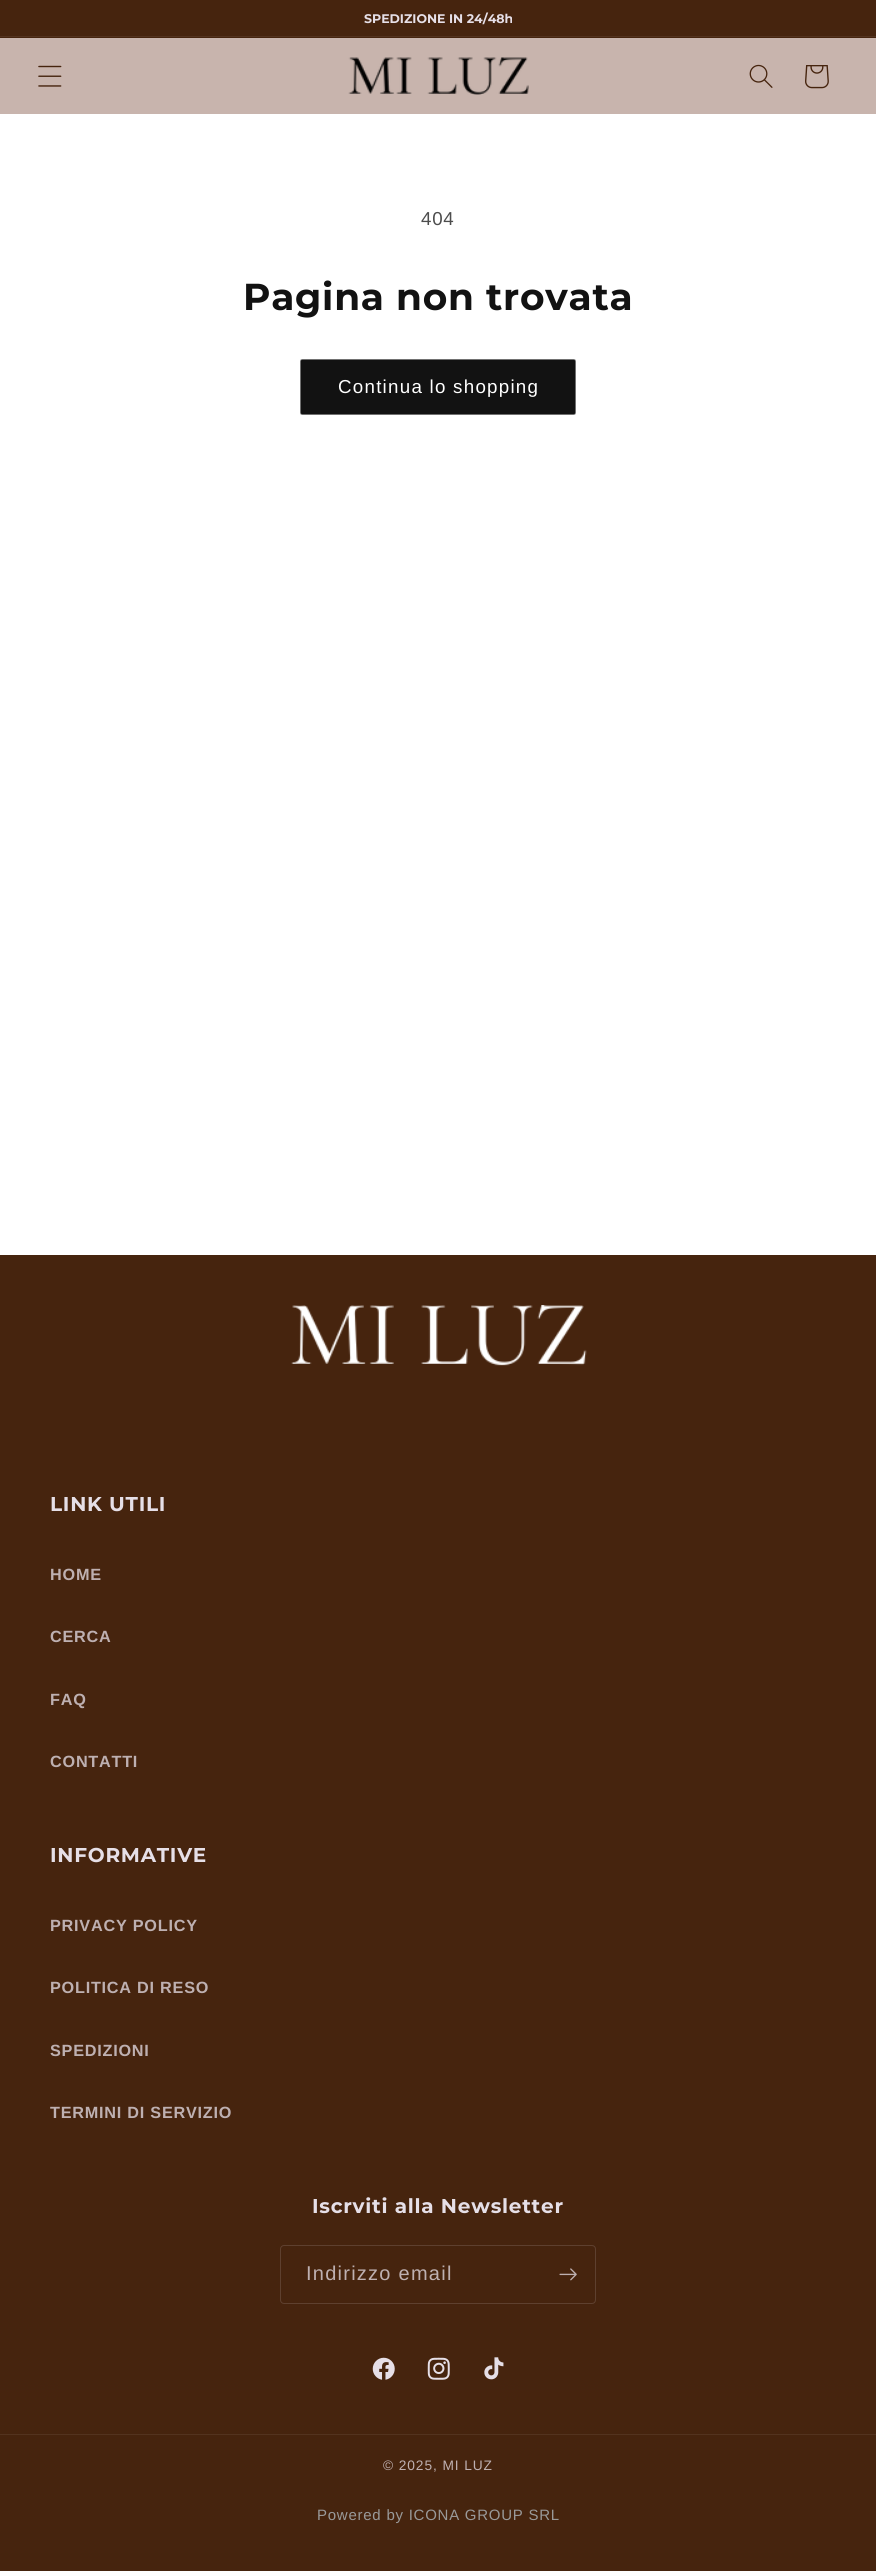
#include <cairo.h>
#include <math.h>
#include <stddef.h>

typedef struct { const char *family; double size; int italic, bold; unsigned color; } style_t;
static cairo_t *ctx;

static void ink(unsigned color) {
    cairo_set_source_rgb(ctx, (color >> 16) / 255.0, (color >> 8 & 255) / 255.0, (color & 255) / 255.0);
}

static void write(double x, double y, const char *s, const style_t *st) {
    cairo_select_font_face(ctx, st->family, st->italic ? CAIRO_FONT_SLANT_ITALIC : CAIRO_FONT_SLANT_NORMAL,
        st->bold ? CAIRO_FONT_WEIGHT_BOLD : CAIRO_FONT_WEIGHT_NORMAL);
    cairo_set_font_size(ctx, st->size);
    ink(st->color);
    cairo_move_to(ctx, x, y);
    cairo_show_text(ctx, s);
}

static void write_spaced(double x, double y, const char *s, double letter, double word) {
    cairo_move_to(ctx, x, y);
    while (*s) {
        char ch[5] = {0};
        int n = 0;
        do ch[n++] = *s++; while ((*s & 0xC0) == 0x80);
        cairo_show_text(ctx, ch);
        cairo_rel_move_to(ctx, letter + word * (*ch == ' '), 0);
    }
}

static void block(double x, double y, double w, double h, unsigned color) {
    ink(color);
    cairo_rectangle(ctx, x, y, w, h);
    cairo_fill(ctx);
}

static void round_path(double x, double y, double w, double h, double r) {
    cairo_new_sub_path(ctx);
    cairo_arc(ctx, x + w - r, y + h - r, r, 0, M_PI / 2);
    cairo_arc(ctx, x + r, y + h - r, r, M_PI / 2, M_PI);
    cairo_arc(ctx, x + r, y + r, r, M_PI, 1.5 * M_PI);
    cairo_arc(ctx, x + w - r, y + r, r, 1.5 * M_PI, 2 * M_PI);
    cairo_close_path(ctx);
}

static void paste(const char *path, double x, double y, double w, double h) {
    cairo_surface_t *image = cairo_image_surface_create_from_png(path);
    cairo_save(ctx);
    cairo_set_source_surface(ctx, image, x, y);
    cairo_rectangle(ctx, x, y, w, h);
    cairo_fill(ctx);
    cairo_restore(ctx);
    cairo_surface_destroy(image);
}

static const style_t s1 = {"Montserrat", 12.5, 0, 1, 0xe6dfe7};

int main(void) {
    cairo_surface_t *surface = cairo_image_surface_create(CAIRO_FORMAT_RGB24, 876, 2571);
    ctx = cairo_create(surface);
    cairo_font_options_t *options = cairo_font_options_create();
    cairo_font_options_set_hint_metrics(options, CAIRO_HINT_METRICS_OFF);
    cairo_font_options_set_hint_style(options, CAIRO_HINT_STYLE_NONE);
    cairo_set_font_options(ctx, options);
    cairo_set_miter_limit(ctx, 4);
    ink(0xffffff);
    cairo_paint(ctx);
    block(0, 0, 876, 38, 0x46240e);
    block(0, 36, 876, 1, 0x53331f);
    write(364, 23, "SPEDIZIONE IN 24/48h", &s1);
    block(0, 38, 876, 76, 0xc8b4ad);
    paste("pic1.png", 38, 65, 24, 22);
    paste("pic2.png", 348, 57, 181, 38);
    paste("pic3.png", 749, 64, 24, 24);
    paste("pic4.png", 805, 65, 24, 24);
    cairo_select_font_face(ctx, "Liberation Sans", CAIRO_FONT_SLANT_NORMAL, CAIRO_FONT_WEIGHT_NORMAL);
    cairo_set_font_size(ctx, 18.75);
    ink(0x4d4d4d);
    write_spaced(421, 225, "404", 0.75, 0);
    cairo_select_font_face(ctx, "Montserrat", CAIRO_FONT_SLANT_NORMAL, CAIRO_FONT_WEIGHT_BOLD);
    cairo_set_font_size(ctx, 37.5);
    ink(0x121212);
    write_spaced(243, 310, "Pagina non trovata", 0.75, 0);
    round_path(300, 359, 276, 56, 2.5);
    cairo_fill(ctx);
    round_path(300.2, 359.2, 275.6, 55.6, 2.8);
    ink(0xffffff);
    cairo_set_line_width(ctx, 0.4);
    cairo_stroke(ctx);
    cairo_select_font_face(ctx, "Liberation Sans", CAIRO_FONT_SLANT_NORMAL, CAIRO_FONT_WEIGHT_NORMAL);
    cairo_set_font_size(ctx, 18.75);
    write_spaced(338, 393, "Continua lo shopping", 1.25, 0);
    block(0, 1255, 876, 1316, 0x46240e);
    paste("pic5.png", 291, 1305, 296, 61);
    cairo_select_font_face(ctx, "Montserrat", CAIRO_FONT_SLANT_NORMAL, CAIRO_FONT_WEIGHT_BOLD);
    cairo_set_font_size(ctx, 20);
    ink(0xe6dfe7);
    write_spaced(50, 1511, "LINK UTILI", 0.75, 0);
    cairo_select_font_face(ctx, "Liberation Sans", CAIRO_FONT_SLANT_NORMAL, CAIRO_FONT_WEIGHT_BOLD);
    cairo_set_font_size(ctx, 16.25);
    ink(0xbeb0b1);
    write_spaced(50, 1580, "HOME", 0.75, 0);
    write_spaced(50, 1642, "CERCA", 0.75, 0);
    write_spaced(50, 1705, "FAQ", 0.75, 0);
    write_spaced(50, 1767, "CONTATTI", 0.75, 0);
    cairo_select_font_face(ctx, "Montserrat", CAIRO_FONT_SLANT_NORMAL, CAIRO_FONT_WEIGHT_BOLD);
    cairo_set_font_size(ctx, 20);
    ink(0xe6dfe7);
    write_spaced(50, 1862, "INFORMATIVE", 0.75, 0);
    cairo_select_font_face(ctx, "Liberation Sans", CAIRO_FONT_SLANT_NORMAL, CAIRO_FONT_WEIGHT_BOLD);
    cairo_set_font_size(ctx, 16.25);
    ink(0xbeb0b1);
    write_spaced(50, 1931, "PRIVACY POLICY", 0.75, 0);
    write_spaced(50, 1993, "POLITICA DI RESO", 0.75, 0);
    write_spaced(50, 2056, "SPEDIZIONI", 0.75, 0);
    write_spaced(50, 2118, "TERMINI DI SERVIZIO", 0.75, 0);
    cairo_select_font_face(ctx, "Montserrat", CAIRO_FONT_SLANT_NORMAL, CAIRO_FONT_WEIGHT_BOLD);
    cairo_set_font_size(ctx, 20);
    ink(0xe6dfe7);
    write_spaced(312, 2213, "Iscrviti alla Newsletter", 0.75, 0);
    round_path(280.5, 2245.5, 315, 58, 3.5);
    ink(0x5e402f);
    cairo_set_line_width(ctx, 1);
    cairo_stroke(ctx);
    cairo_select_font_face(ctx, "Liberation Sans", CAIRO_FONT_SLANT_NORMAL, CAIRO_FONT_WEIGHT_NORMAL);
    ink(0xbeb0b1);
    write_spaced(306, 2280, "Indirizzo email", 1.25, 0);
    paste("pic6.png", 559, 2268, 18, 13);
    paste("pic7.png", 372, 2357, 23, 23);
    paste("pic8.png", 427, 2357, 23, 23);
    paste("pic9.png", 484, 2357, 20, 23);
    block(0, 2434, 876, 1, 0x53331f);
    cairo_set_font_size(ctx, 13.75);
    ink(0xbeb0b1);
    write_spaced(383, 2470, "© 2025, MI LUZ", 0.9, 0);
    cairo_set_font_size(ctx, 15);
    ink(0x999999);
    write_spaced(317, 2520, "Powered by ICONA GROUP SRL", 0.75, 0);
    cairo_surface_write_to_png(surface, "screenshot.png");
    cairo_font_options_destroy(options);
    cairo_destroy(ctx);
    cairo_surface_destroy(surface);
    return 0;
}
